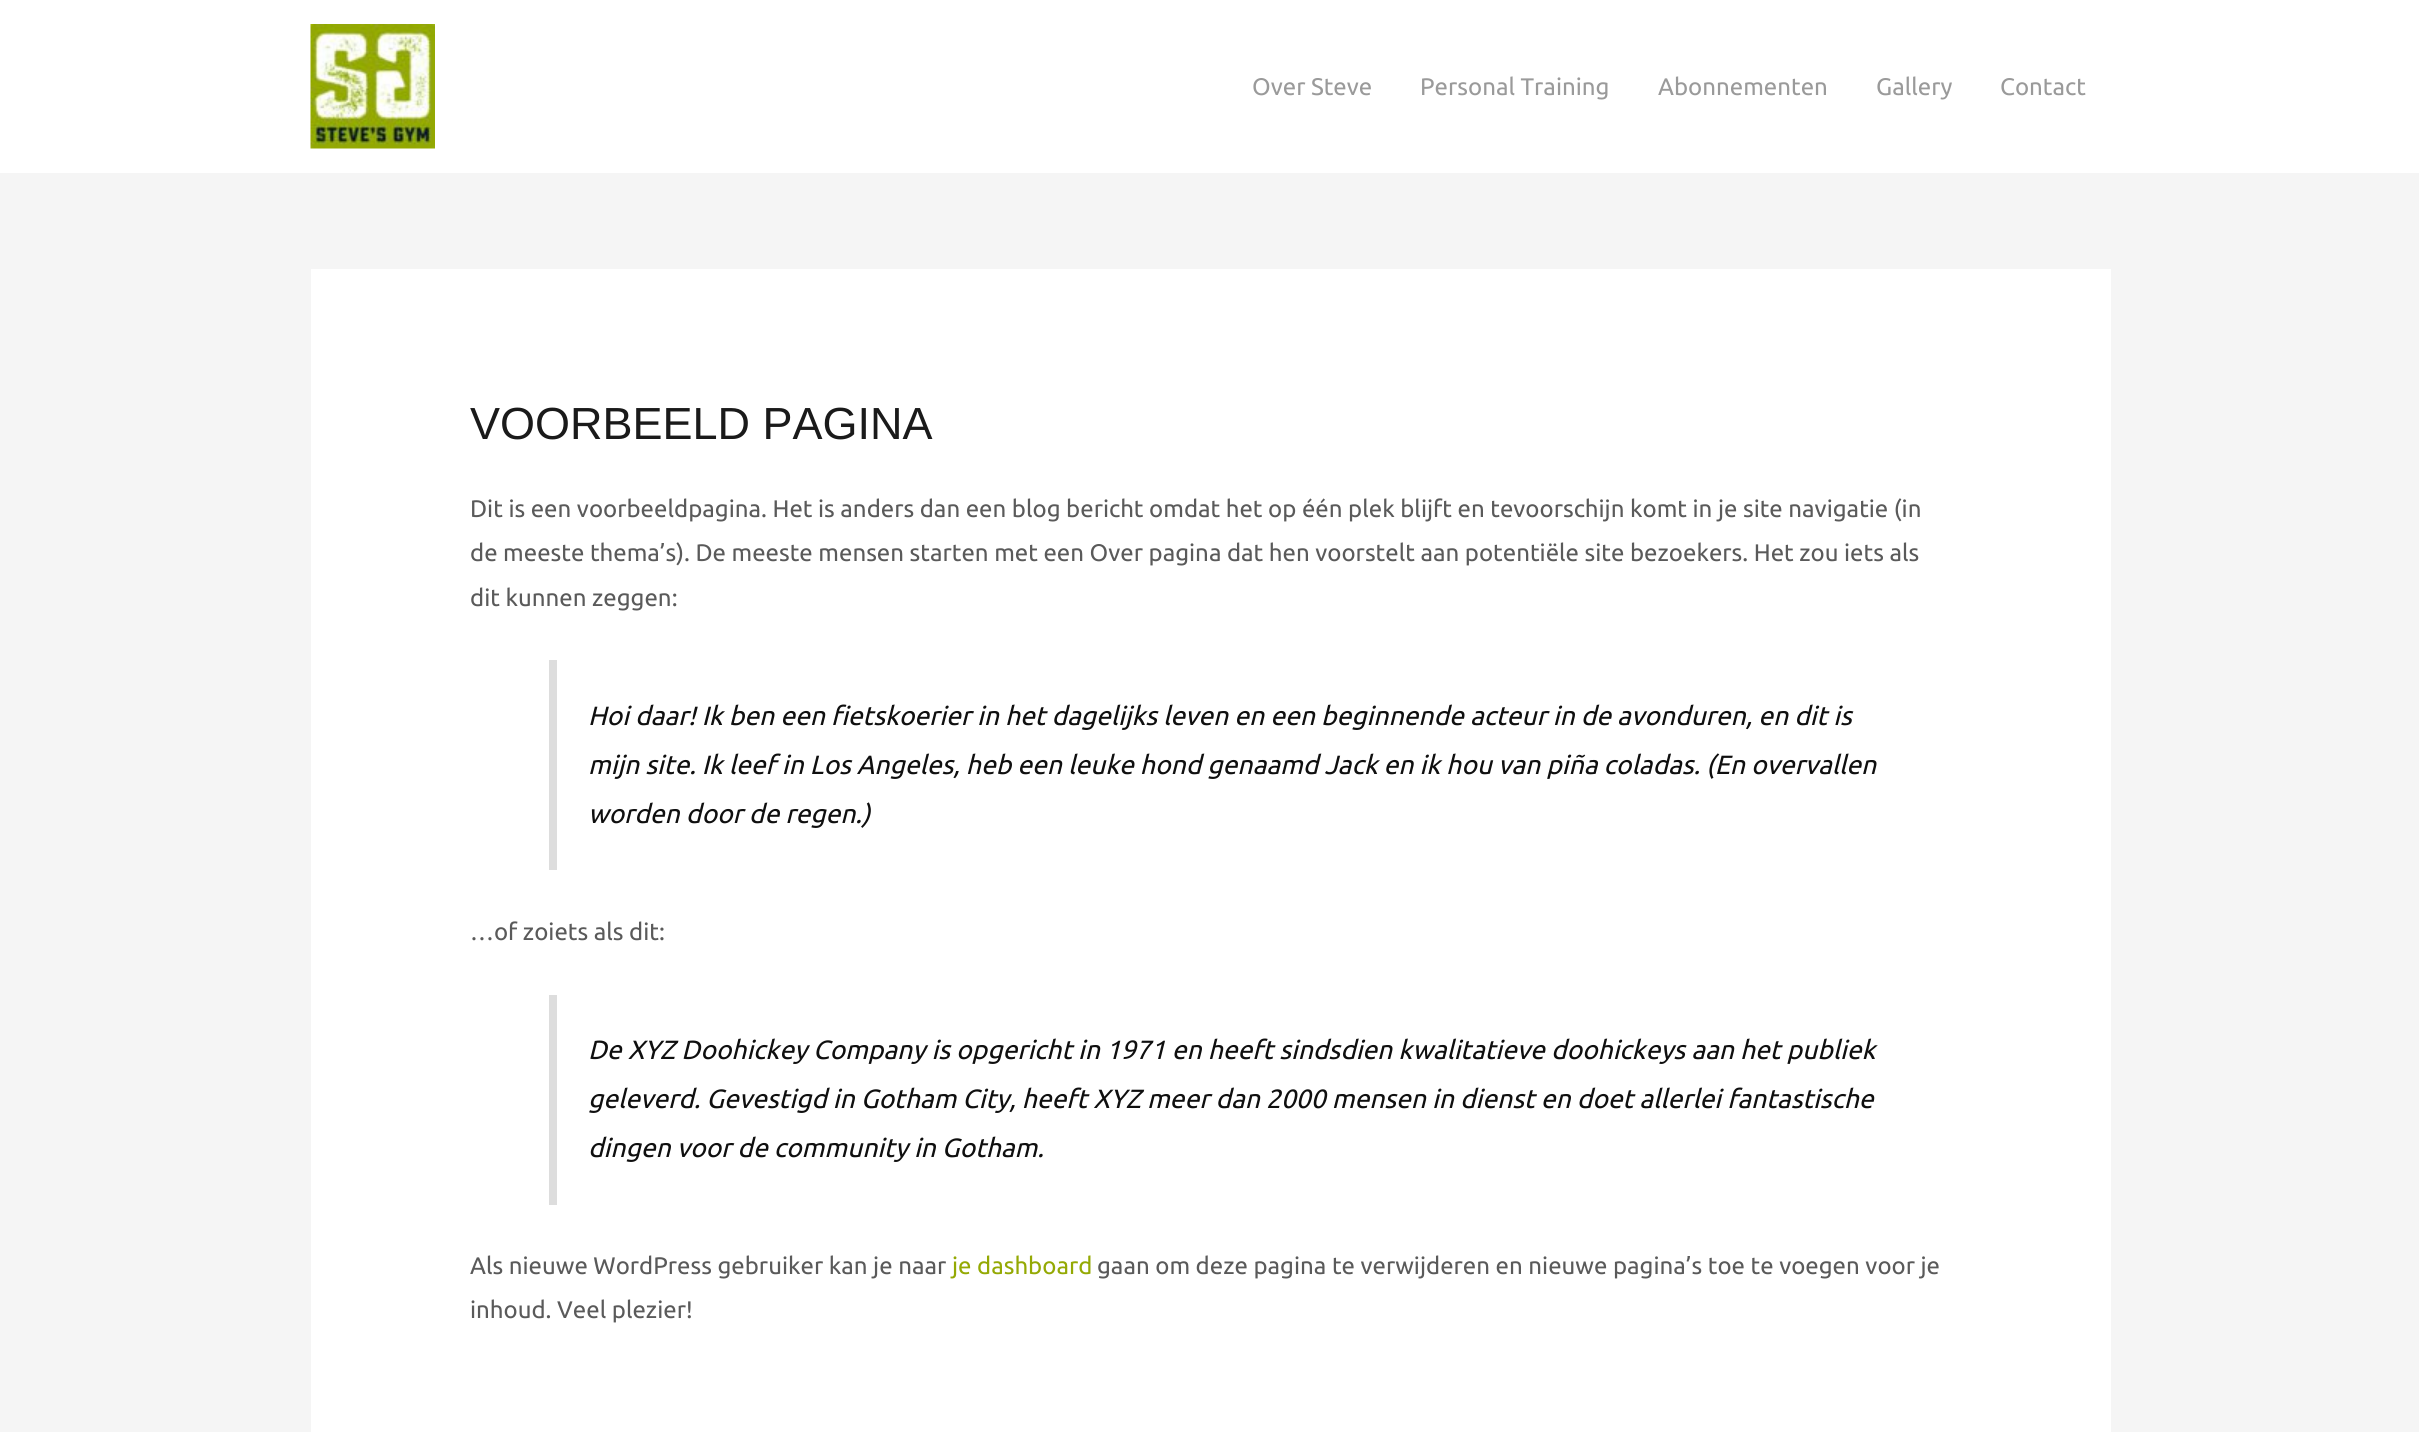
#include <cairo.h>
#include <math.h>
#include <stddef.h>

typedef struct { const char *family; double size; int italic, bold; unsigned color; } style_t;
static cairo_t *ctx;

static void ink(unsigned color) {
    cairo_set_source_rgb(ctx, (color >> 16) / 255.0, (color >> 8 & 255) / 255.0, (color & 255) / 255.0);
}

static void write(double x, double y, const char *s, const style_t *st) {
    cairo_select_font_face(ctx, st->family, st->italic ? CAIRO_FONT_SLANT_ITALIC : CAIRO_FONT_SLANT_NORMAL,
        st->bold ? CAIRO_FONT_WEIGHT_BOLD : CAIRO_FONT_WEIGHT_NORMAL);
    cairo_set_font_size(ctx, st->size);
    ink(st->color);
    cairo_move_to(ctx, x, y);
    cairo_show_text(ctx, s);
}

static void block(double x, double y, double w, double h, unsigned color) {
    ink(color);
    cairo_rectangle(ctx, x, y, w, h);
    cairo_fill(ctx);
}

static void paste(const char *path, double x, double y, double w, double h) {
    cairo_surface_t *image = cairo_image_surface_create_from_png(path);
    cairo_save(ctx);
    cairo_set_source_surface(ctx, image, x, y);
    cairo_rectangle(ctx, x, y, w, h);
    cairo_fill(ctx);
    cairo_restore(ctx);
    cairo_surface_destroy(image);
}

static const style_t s1 = {"Ubuntu", 24, 0, 0, 0x9a9a9a};
static const style_t s2 = {"Liberation Sans", 45, 0, 0, 0x1a1a1a};
static const style_t s3 = {"Ubuntu", 24, 0, 0, 0x5a5a5a};
static const style_t s4 = {"Ubuntu", 26.4, 1, 0, 0x0f0f0f};
static const style_t s5 = {"Ubuntu", 24, 0, 0, 0x94a904};

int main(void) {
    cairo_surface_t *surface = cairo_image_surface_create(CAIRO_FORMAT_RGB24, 2419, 1432);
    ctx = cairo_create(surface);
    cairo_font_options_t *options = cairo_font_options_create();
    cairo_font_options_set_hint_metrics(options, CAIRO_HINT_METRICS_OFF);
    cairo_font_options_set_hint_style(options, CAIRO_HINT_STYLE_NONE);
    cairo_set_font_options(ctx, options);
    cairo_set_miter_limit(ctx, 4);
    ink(0xf5f5f5);
    cairo_paint(ctx);
    block(0, 0, 2419, 173, 0xffffff);
    paste("pic1.png", 310, 24, 125, 125);
    write(1252, 95, "Over Steve", &s1);
    write(1420, 95, "Personal Training", &s1);
    write(1658, 95, "Abonnementen", &s1);
    write(1876, 95, "Gallery", &s1);
    write(2000, 95, "Contact", &s1);
    block(311, 269, 1800, 1163, 0xffffff);
    write(470, 439, "VOORBEELD PAGINA", &s2);
    write(470, 517, "Dit is een voorbeeldpagina. Het is anders dan een blog bericht omdat het op één plek blijft en tevoorschijn komt in je site navigatie (in", &s3);
    write(470, 561, "de meeste thema’s). De meeste mensen starten met een Over pagina dat hen voorstelt aan potentiële site bezoekers. Het zou iets als", &s3);
    write(470, 606, "dit kunnen zeggen:", &s3);
    block(549, 660, 8, 210, 0xdddddd);
    write(588, 725, "Hoi daar! Ik ben een fietskoerier in het dagelijks leven en een beginnende acteur in de avonduren, en dit is", &s4);
    write(588, 774, "mijn site. Ik leef in Los Angeles, heb een leuke hond genaamd Jack en ik hou van piña coladas. (En overvallen", &s4);
    write(588, 823, "worden door de regen.)", &s4);
    write(470, 940, "…of zoiets als dit:", &s3);
    block(549, 995, 8, 210, 0xdddddd);
    write(588, 1059, "De XYZ Doohickey Company is opgericht in 1971 en heeft sindsdien kwalitatieve doohickeys aan het publiek", &s4);
    write(588, 1108, "geleverd. Gevestigd in Gotham City, heeft XYZ meer dan 2000 mensen in dienst en doet allerlei fantastische", &s4);
    write(588, 1157, "dingen voor de community in Gotham.", &s4);
    write(470, 1274, "Als nieuwe WordPress gebruiker kan je naar", &s3);
    write(952, 1274, "je dashboard", &s5);
    write(1097, 1274, "gaan om deze pagina te verwijderen en nieuwe pagina’s toe te voegen voor je", &s3);
    write(470, 1318, "inhoud. Veel plezier!", &s3);
    cairo_surface_write_to_png(surface, "screenshot.png");
    cairo_font_options_destroy(options);
    cairo_destroy(ctx);
    cairo_surface_destroy(surface);
    return 0;
}
